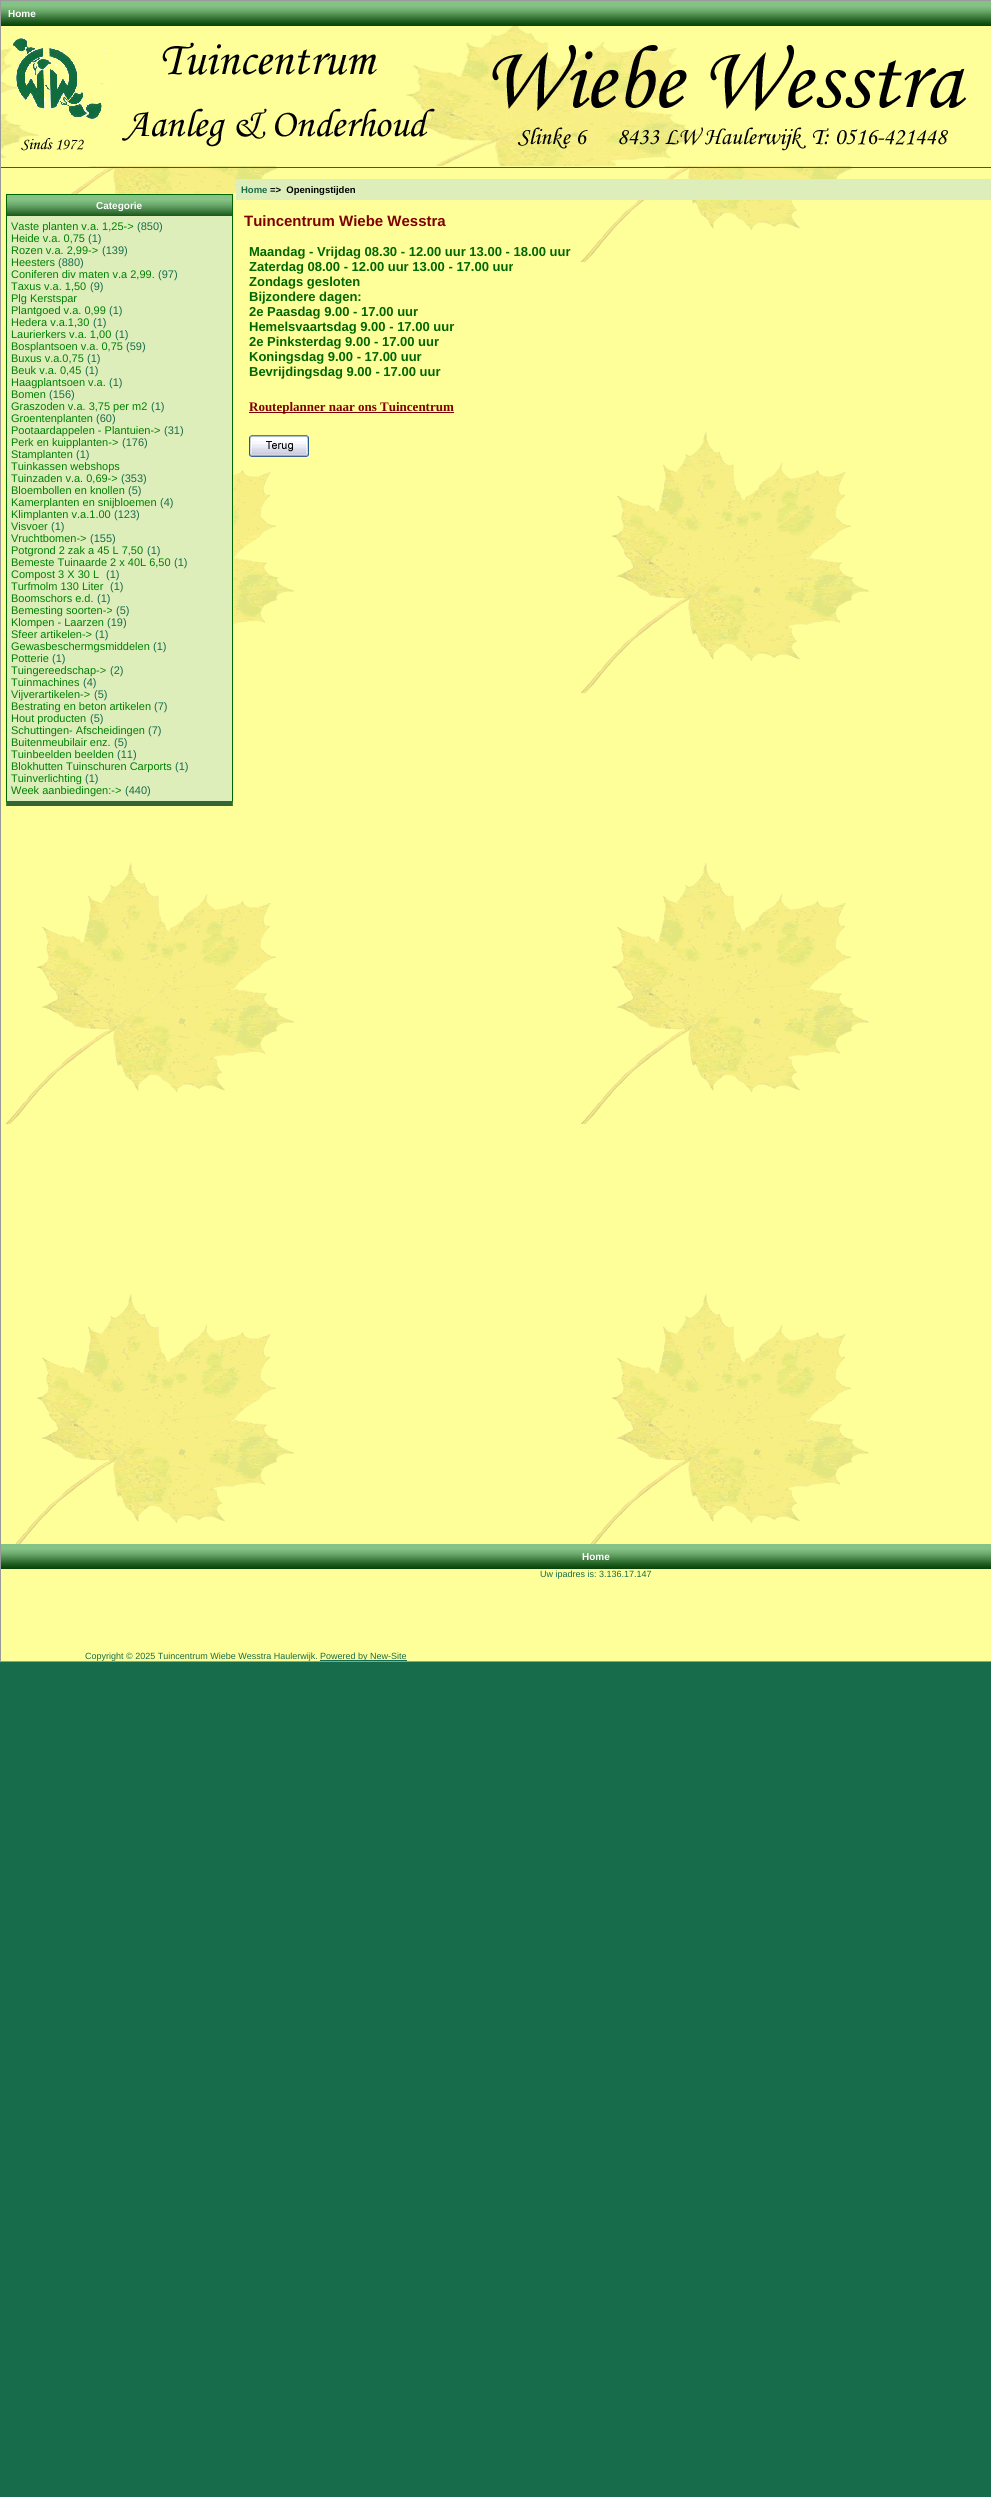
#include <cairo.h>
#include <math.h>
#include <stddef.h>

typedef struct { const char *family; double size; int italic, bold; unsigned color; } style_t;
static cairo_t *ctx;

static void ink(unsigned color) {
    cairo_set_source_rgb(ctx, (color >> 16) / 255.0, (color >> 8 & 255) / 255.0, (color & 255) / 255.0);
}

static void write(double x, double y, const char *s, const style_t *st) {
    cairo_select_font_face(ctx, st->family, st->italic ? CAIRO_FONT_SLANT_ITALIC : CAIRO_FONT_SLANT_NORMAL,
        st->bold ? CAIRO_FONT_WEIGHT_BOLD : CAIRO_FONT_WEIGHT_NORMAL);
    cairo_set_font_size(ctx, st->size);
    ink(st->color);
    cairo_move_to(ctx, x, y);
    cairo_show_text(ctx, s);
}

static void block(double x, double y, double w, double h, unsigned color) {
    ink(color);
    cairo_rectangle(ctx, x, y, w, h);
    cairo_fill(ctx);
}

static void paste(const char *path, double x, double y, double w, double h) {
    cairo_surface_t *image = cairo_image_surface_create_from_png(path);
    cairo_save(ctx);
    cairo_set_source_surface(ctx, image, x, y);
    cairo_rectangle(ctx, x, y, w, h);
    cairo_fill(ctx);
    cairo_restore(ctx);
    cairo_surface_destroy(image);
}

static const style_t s1 = {"Liberation Sans", 10, 0, 1, 0xffffff};
static const style_t s2 = {"Liberation Sans", 11, 0, 0, 0x008000};
static const style_t s3 = {"Liberation Sans", 11, 0, 0, 0x176c4b};
static const style_t s4 = {"Liberation Sans", 9.5, 0, 1, 0x176c4b};
static const style_t s5 = {"Liberation Sans", 9.5, 0, 1, 0x000000};
static const style_t s6 = {"Liberation Sans", 15, 0, 1, 0x800000};
static const style_t s7 = {"Liberation Sans", 13, 0, 1, 0x006600};
static const style_t s8 = {"Liberation Serif", 13, 0, 1, 0x800000};
static const style_t s9 = {"Liberation Sans", 9, 0, 0, 0x176c4b};

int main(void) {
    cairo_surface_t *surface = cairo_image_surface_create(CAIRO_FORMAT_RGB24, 991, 2497);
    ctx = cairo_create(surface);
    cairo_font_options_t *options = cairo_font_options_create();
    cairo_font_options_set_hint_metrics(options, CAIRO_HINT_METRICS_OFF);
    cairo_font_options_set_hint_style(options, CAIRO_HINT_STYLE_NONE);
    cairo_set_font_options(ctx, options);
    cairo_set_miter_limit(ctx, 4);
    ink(0x176c4b);
    cairo_paint(ctx);
    paste("pic1.png", 1, 26, 990, 1635);
    cairo_rectangle(ctx, 0.5, 0.5, 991, 1661);
    ink(0x9a9a9a);
    cairo_set_line_width(ctx, 1);
    cairo_stroke(ctx);
    paste("pic2.png", 1, 1, 990, 25);
    write(8, 17, "Home", &s1);
    block(1, 167, 990, 1, 0x176c4b);
    paste("pic3.png", 1, 26, 968, 140);
    block(6, 194, 227, 1, 0x006400);
    cairo_new_path(ctx);
    cairo_move_to(ctx, 233, 194);
    cairo_line_to(ctx, 233, 806);
    cairo_line_to(ctx, 232, 801);
    cairo_line_to(ctx, 232, 195);
    cairo_close_path(ctx);
    cairo_fill(ctx);
    ink(0x336633);
    cairo_new_path(ctx);
    cairo_move_to(ctx, 233, 806);
    cairo_line_to(ctx, 6, 806);
    cairo_line_to(ctx, 7, 801);
    cairo_line_to(ctx, 232, 801);
    cairo_close_path(ctx);
    cairo_fill(ctx);
    ink(0x006400);
    cairo_new_path(ctx);
    cairo_move_to(ctx, 6, 806);
    cairo_line_to(ctx, 6, 194);
    cairo_line_to(ctx, 7, 195);
    cairo_line_to(ctx, 7, 801);
    cairo_close_path(ctx);
    cairo_fill(ctx);
    paste("pic4.png", 7, 195, 225, 21);
    write(96, 209, "Categorie", &s1);
    block(7, 216, 225, 585, 0xddeebb);
    write(11, 230, "Vaste planten v.a. 1,25->", &s2);
    write(137, 230, "(850)", &s3);
    write(11, 242, "Heide v.a. 0,75", &s2);
    write(88, 242, "(1)", &s3);
    write(11, 254, "Rozen v.a. 2,99->", &s2);
    write(102, 254, "(139)", &s3);
    write(11, 266, "Heesters", &s2);
    write(58, 266, "(880)", &s3);
    write(11, 278, "Coniferen div maten v.a 2,99.", &s2);
    write(158, 278, "(97)", &s3);
    write(11, 290, "Taxus v.a. 1,50", &s2);
    write(90, 290, "(9)", &s3);
    write(11, 302, "Plg Kerstspar", &s2);
    write(11, 314, "Plantgoed v.a. 0,99", &s2);
    write(109, 314, "(1)", &s3);
    write(11, 326, "Hedera v.a.1,30", &s2);
    write(93, 326, "(1)", &s3);
    write(11, 338, "Laurierkers v.a. 1,00", &s2);
    write(115, 338, "(1)", &s3);
    write(11, 350, "Bosplantsoen v.a. 0,75", &s2);
    write(126, 350, "(59)", &s3);
    write(11, 362, "Buxus v.a.0,75", &s2);
    write(87, 362, "(1)", &s3);
    write(11, 374, "Beuk v.a. 0,45", &s2);
    write(85, 374, "(1)", &s3);
    write(11, 386, "Haagplantsoen v.a.", &s2);
    write(109, 386, "(1)", &s3);
    write(11, 398, "Bomen", &s2);
    write(49, 398, "(156)", &s3);
    write(11, 410, "Graszoden v.a. 3,75 per m2", &s2);
    write(151, 410, "(1)", &s3);
    write(11, 422, "Groentenplanten", &s2);
    write(96, 422, "(60)", &s3);
    write(11, 434, "Pootaardappelen - Plantuien->", &s2);
    write(164, 434, "(31)", &s3);
    write(11, 446, "Perk en kuipplanten->", &s2);
    write(122, 446, "(176)", &s3);
    write(11, 458, "Stamplanten", &s2);
    write(76, 458, "(1)", &s3);
    write(11, 470, "Tuinkassen webshops", &s2);
    write(11, 482, "Tuinzaden v.a. 0,69->", &s2);
    write(121, 482, "(353)", &s3);
    write(11, 494, "Bloembollen en knollen", &s2);
    write(128, 494, "(5)", &s3);
    write(11, 506, "Kamerplanten en snijbloemen", &s2);
    write(160, 506, "(4)", &s3);
    write(11, 518, "Klimplanten v.a.1.00", &s2);
    write(114, 518, "(123)", &s3);
    write(11, 530, "Visvoer", &s2);
    write(51, 530, "(1)", &s3);
    write(11, 542, "Vruchtbomen->", &s2);
    write(90, 542, "(155)", &s3);
    write(11, 554, "Potgrond 2 zak a 45 L 7,50", &s2);
    write(147, 554, "(1)", &s3);
    write(11, 566, "Bemeste Tuinaarde 2 x 40L 6,50", &s2);
    write(174, 566, "(1)", &s3);
    write(11, 578, "Compost 3 X 30 L", &s2);
    write(106, 578, "(1)", &s3);
    write(11, 590, "Turfmolm 130 Liter", &s2);
    write(110, 590, "(1)", &s3);
    write(11, 602, "Boomschors e.d.", &s2);
    write(97, 602, "(1)", &s3);
    write(11, 614, "Bemesting soorten->", &s2);
    write(116, 614, "(5)", &s3);
    write(11, 626, "Klompen - Laarzen", &s2);
    write(107, 626, "(19)", &s3);
    write(11, 638, "Sfeer artikelen->", &s2);
    write(95, 638, "(1)", &s3);
    write(11, 650, "Gewasbeschermgsmiddelen", &s2);
    write(153, 650, "(1)", &s3);
    write(11, 662, "Potterie", &s2);
    write(52, 662, "(1)", &s3);
    write(11, 674, "Tuingereedschap->", &s2);
    write(110, 674, "(2)", &s3);
    write(11, 686, "Tuinmachines", &s2);
    write(83, 686, "(4)", &s3);
    write(11, 698, "Vijverartikelen->", &s2);
    write(94, 698, "(5)", &s3);
    write(11, 710, "Bestrating en beton artikelen", &s2);
    write(154, 710, "(7)", &s3);
    write(11, 722, "Hout producten", &s2);
    write(90, 722, "(5)", &s3);
    write(11, 734, "Schuttingen- Afscheidingen", &s2);
    write(148, 734, "(7)", &s3);
    write(11, 746, "Buitenmeubilair enz.", &s2);
    write(114, 746, "(5)", &s3);
    write(11, 758, "Tuinbeelden beelden", &s2);
    write(117, 758, "(11)", &s3);
    write(11, 770, "Blokhutten Tuinschuren Carports", &s2);
    write(175, 770, "(1)", &s3);
    write(11, 782, "Tuinverlichting", &s2);
    write(85, 782, "(1)", &s3);
    write(11, 794, "Week aanbiedingen:->", &s2);
    write(125, 794, "(440)", &s3);
    block(236, 179, 755, 21, 0xddeebb);
    write(241, 193, "Home", &s4);
    write(270, 193, "=>  Openingstijden", &s5);
    write(244, 226, "Tuincentrum Wiebe Wesstra", &s6);
    write(249, 256, "Maandag - Vrijdag 08.30 - 12.00 uur 13.00 - 18.00 uur", &s7);
    write(249, 271, "Zaterdag 08.00 - 12.00 uur 13.00 - 17.00 uur", &s7);
    write(249, 286, "Zondags gesloten", &s7);
    write(249, 301, "Bijzondere dagen:", &s7);
    write(249, 316, "2e Paasdag 9.00 - 17.00 uur", &s7);
    write(249, 331, "Hemelsvaartsdag 9.00 - 17.00 uur", &s7);
    write(249, 346, "2e Pinksterdag 9.00 - 17.00 uur", &s7);
    write(249, 361, "Koningsdag 9.00 - 17.00 uur", &s7);
    write(249, 376, "Bevrijdingsdag 9.00 - 17.00 uur", &s7);
    block(249, 412, 205, 1, 0x800000);
    write(249, 411, "Routeplanner naar ons Tuincentrum", &s8);
    paste("pic5.png", 249, 435, 60, 22);
    paste("pic2.png", 1, 1544, 990, 25);
    write(582, 1560, "Home", &s1);
    write(540, 1577, "Uw ipadres is: 3.136.17.147", &s9);
    write(85, 1659, "Copyright © 2025 Tuincentrum Wiebe Wesstra Haulerwijk.", &s9);
    block(320, 1660, 87, 1, 0x176c4b);
    write(320, 1659, "Powered by New-Site", &s9);
    cairo_surface_write_to_png(surface, "screenshot.png");
    cairo_font_options_destroy(options);
    cairo_destroy(ctx);
    cairo_surface_destroy(surface);
    return 0;
}
